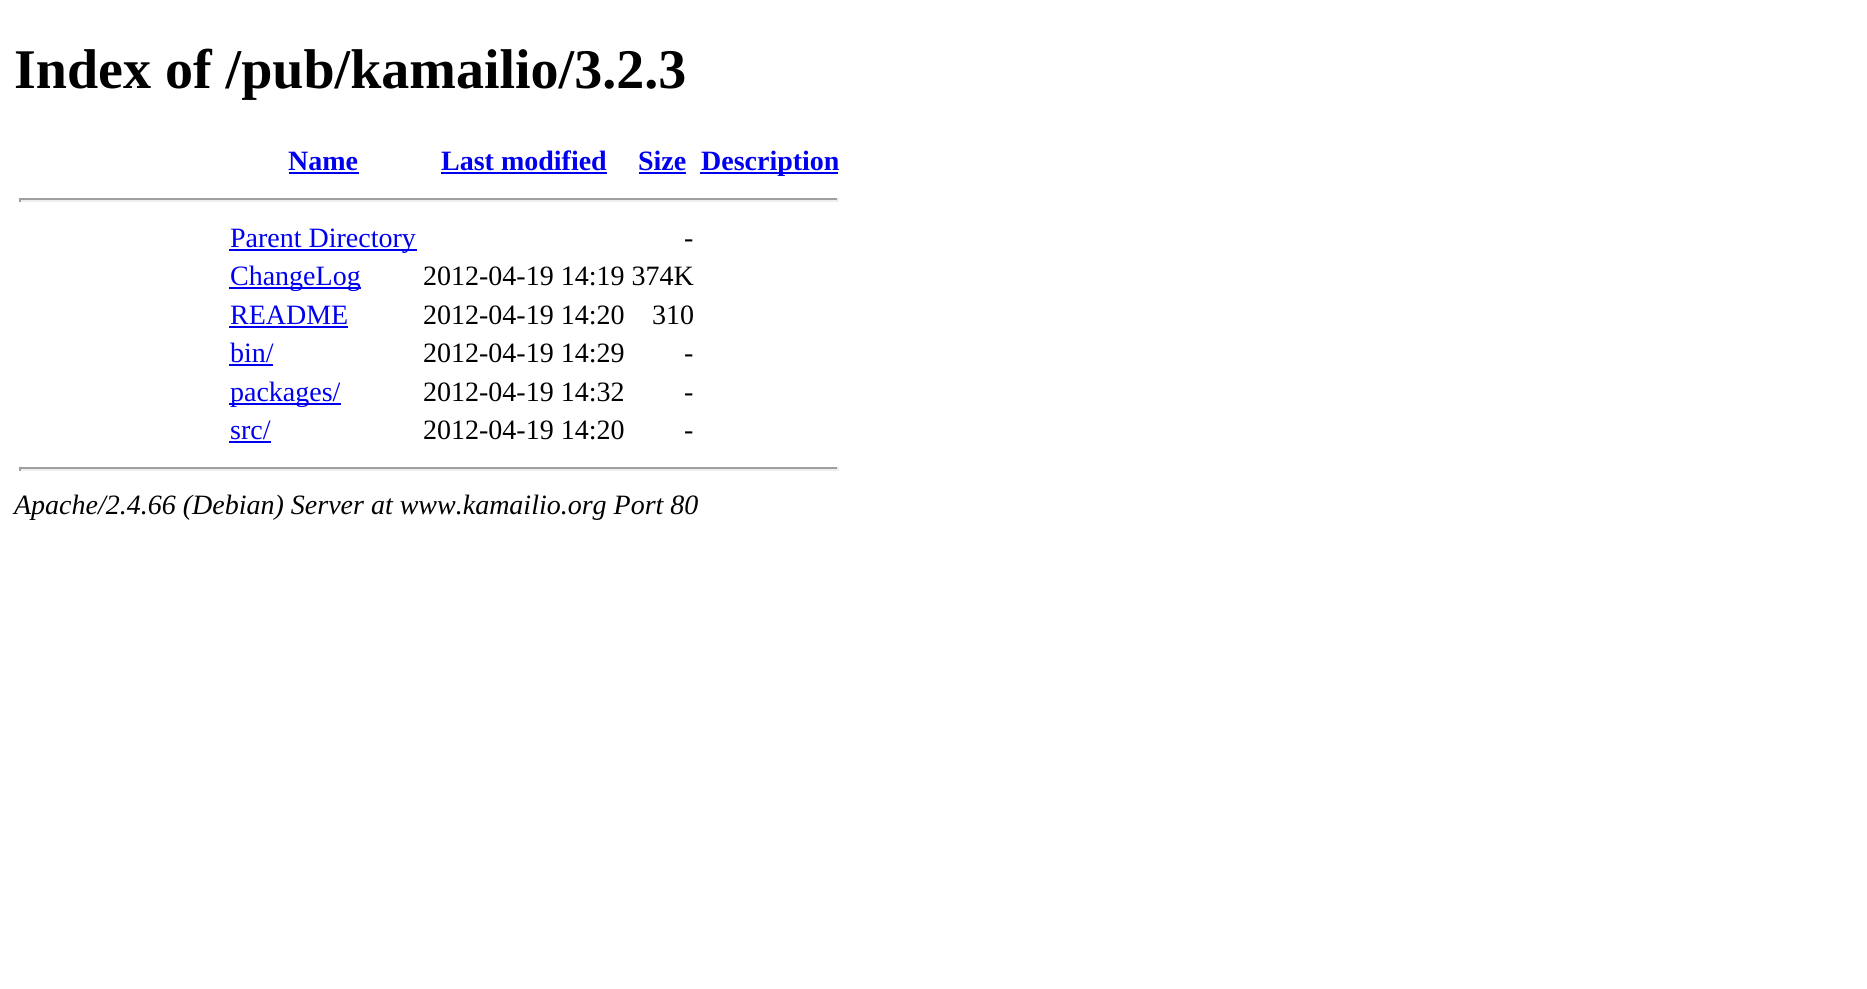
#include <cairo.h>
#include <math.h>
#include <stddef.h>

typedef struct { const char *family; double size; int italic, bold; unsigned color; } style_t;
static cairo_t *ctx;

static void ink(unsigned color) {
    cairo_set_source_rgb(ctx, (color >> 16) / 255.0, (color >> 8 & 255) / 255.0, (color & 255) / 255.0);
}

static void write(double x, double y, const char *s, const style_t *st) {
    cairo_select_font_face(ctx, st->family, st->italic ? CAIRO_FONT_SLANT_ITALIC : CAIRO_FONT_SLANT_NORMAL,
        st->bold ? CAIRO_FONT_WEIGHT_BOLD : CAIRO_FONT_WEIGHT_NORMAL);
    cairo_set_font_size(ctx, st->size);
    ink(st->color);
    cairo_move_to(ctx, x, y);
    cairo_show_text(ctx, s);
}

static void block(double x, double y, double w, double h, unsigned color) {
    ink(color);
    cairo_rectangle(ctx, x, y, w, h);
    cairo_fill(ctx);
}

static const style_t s1 = {"Liberation Serif", 56, 0, 1, 0x000000};
static const style_t s2 = {"Liberation Serif", 28, 0, 1, 0x0000ee};
static const style_t s3 = {"Liberation Serif", 28, 0, 0, 0x0000ee};
static const style_t s4 = {"Liberation Serif", 28, 0, 0, 0x000000};
static const style_t s5 = {"Liberation Serif", 28, 1, 0, 0x000000};

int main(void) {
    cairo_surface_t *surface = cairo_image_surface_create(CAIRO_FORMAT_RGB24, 1867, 989);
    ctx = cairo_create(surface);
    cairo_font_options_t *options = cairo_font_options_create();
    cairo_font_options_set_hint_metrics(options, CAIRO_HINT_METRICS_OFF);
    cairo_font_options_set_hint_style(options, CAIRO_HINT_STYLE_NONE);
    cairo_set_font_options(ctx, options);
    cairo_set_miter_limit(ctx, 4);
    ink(0xffffff);
    cairo_paint(ctx);
    write(14, 88, "Index of /pub/kamailio/3.2.3", &s1);
    write(288, 170, "Name", &s2);
    block(289, 172, 70, 2, 0x0000ee);
    write(441, 170, "Last modified", &s2);
    block(441, 172, 166, 2, 0x0000ee);
    write(638, 170, "Size", &s2);
    block(639, 172, 47, 2, 0x0000ee);
    block(700, 172, 138, 2, 0x0000ee);
    write(701, 170, "Description", &s2);
    block(19, 198, 819, 2, 0x9f9f9f);
    block(837, 198, 2, 4, 0xeeeeee);
    block(19, 200, 819, 2, 0xeeeeee);
    block(19, 198, 2, 4, 0x9f9f9f);
    block(229, 249, 188, 2, 0x0000ee);
    write(230, 247, "Parent Directory", &s3);
    write(684, 247, "-", &s4);
    block(229, 287, 132, 2, 0x0000ee);
    write(230, 285, "ChangeLog", &s3);
    write(423, 285, "2012-04-19 14:19 374K", &s4);
    write(230, 324, "README", &s3);
    block(229, 326, 119, 2, 0x0000ee);
    write(423, 324, "2012-04-19 14:20", &s4);
    write(652, 324, "310", &s4);
    write(230, 362, "bin/", &s3);
    block(229, 364, 44, 2, 0x0000ee);
    write(423, 362, "2012-04-19 14:29", &s4);
    write(684, 362, "-", &s4);
    block(229, 403, 112, 2, 0x0000ee);
    write(230, 401, "packages/", &s3);
    write(423, 401, "2012-04-19 14:32", &s4);
    write(684, 401, "-", &s4);
    write(230, 439, "src/", &s3);
    block(229, 441, 42, 2, 0x0000ee);
    write(423, 439, "2012-04-19 14:20", &s4);
    write(684, 439, "-", &s4);
    block(19, 467, 819, 2, 0x9f9f9f);
    block(837, 467, 2, 4, 0xeeeeee);
    block(19, 469, 819, 2, 0xeeeeee);
    block(19, 467, 2, 4, 0x9f9f9f);
    write(14, 514, "Apache/2.4.66 (Debian) Server at www.kamailio.org Port 80", &s5);
    cairo_surface_write_to_png(surface, "screenshot.png");
    cairo_font_options_destroy(options);
    cairo_destroy(ctx);
    cairo_surface_destroy(surface);
    return 0;
}
